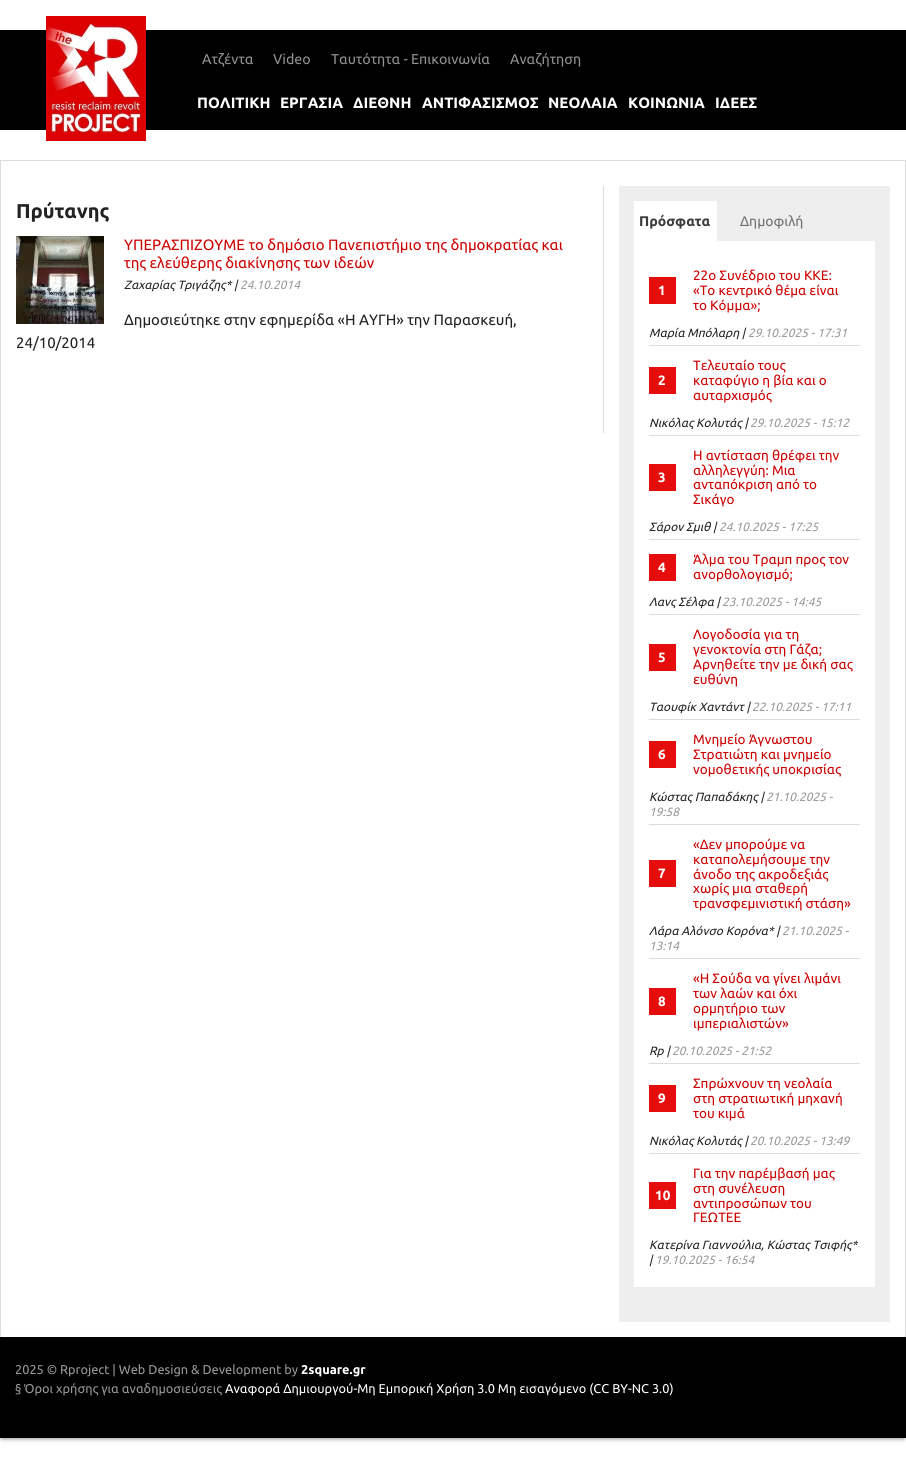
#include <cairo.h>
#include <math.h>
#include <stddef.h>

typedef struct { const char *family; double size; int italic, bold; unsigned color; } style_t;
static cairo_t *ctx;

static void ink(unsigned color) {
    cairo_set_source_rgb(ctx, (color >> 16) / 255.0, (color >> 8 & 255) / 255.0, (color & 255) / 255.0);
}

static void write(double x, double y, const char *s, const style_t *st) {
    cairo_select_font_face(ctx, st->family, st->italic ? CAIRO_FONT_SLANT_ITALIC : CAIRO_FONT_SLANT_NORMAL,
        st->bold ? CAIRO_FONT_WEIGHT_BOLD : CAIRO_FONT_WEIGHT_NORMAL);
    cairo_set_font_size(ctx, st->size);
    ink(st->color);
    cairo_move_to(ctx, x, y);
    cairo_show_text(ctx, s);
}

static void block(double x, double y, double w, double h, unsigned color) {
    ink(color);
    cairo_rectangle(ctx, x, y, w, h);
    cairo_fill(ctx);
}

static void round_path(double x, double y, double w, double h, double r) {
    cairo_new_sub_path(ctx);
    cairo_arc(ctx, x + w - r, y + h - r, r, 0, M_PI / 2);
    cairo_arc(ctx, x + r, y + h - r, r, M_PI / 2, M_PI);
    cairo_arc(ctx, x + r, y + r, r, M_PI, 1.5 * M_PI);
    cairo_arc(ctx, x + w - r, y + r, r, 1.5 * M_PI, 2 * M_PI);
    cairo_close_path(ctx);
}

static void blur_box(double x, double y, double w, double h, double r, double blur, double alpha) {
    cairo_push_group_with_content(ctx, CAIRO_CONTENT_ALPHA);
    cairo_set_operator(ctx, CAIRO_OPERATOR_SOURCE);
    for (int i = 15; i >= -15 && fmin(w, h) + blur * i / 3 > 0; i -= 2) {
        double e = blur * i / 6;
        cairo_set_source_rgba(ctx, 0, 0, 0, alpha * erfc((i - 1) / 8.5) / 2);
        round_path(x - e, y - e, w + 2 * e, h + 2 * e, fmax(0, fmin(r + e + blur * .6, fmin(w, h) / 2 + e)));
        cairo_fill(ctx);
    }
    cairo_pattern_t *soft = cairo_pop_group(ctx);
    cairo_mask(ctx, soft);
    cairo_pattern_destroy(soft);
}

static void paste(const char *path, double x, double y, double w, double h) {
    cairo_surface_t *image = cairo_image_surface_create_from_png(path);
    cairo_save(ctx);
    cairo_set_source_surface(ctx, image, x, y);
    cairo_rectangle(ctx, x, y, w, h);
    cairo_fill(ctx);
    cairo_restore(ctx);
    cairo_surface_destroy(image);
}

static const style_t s1 = {"Ubuntu", 14.25, 0, 0, 0x919191};
static const style_t s2 = {"Ubuntu", 15, 0, 1, 0xffffff};
static const style_t s3 = {"Ubuntu", 20, 0, 1, 0x222222};
static const style_t s4 = {"Ubuntu", 15, 0, 0, 0xcc0000};
static const style_t s5 = {"Ubuntu", 12, 1, 0, 0x222222};
static const style_t s6 = {"Ubuntu", 12, 1, 0, 0x999999};
static const style_t s7 = {"Ubuntu", 15, 0, 0, 0x222222};
static const style_t s8 = {"Ubuntu", 14, 0, 1, 0x3c3c3c};
static const style_t s9 = {"Ubuntu", 14, 0, 0, 0x6f6f6f};
static const style_t s10 = {"Ubuntu", 13.5, 0, 0, 0xcc0000};
static const style_t s11 = {"Ubuntu", 13.5, 0, 1, 0xffffff};
static const style_t s12 = {"Ubuntu", 12.75, 0, 0, 0x999999};
static const style_t s13 = {"Ubuntu", 12.75, 0, 1, 0xffffff};
static const style_t s14 = {"Ubuntu", 12.75, 0, 0, 0xffffff};

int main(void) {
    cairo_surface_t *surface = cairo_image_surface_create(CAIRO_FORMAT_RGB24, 906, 1477);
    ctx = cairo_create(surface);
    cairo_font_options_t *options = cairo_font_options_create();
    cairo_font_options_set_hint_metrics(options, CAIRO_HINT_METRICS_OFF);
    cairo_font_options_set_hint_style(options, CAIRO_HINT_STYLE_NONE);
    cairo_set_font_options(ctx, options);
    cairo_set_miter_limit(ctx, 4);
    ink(0xffffff);
    cairo_paint(ctx);
    block(0, 30, 906, 100, 0x000000);
    paste("pic1.png", 46, 16, 100, 125);
    write(202, 64, "Ατζέντα", &s1);
    write(273, 64, "Video", &s1);
    write(331, 64, "Ταυτότητα - Επικοινωνία", &s1);
    write(510, 64, "Αναζήτηση", &s1);
    write(197, 108, "ΠΟΛΙΤΙΚΗ", &s2);
    write(280, 108, "ΕΡΓΑΣΙΑ", &s2);
    write(353, 108, "ΔΙΕΘΝΗ", &s2);
    write(422, 108, "ΑΝΤΙΦΑΣΙΣΜΟΣ", &s2);
    write(548, 108, "ΝΕΟΛΑΙΑ", &s2);
    write(628, 108, "ΚΟΙΝΩΝΙΑ", &s2);
    write(715, 108, "ΙΔΕΕΣ", &s2);
    ink(0x666666);
    blur_box(2, 1341, 902, 97, 0, 2.5, 1);
    block(2, 1336, 902, 1, 0xffffff);
    block(0, 160, 906, 1, 0xdddddd);
    block(905, 160, 1, 1177, 0xdddddd);
    block(0, 160, 1, 1177, 0xdddddd);
    block(603, 186, 1, 247, 0xdddddd);
    write(16, 218, "Πρύτανης", &s3);
    paste("pic2.png", 16, 236, 88, 88);
    write(124, 250, "ΥΠΕΡΑΣΠΙΖΟΥΜΕ το δημόσιο Πανεπιστήμιο της δημοκρατίας και", &s4);
    write(124, 268, "της ελεύθερης διακίνησης των ιδεών", &s4);
    write(124, 289, "Ζαχαρίας Τριγάζης* |", &s5);
    write(240, 289, "24.10.2014", &s6);
    write(124, 325, "Δημοσιεύτηκε στην εφημερίδα «Η ΑΥΓΗ» την Παρασκευή,", &s7);
    write(16, 348, "24/10/2014", &s7);
    block(619, 186, 271, 1136, 0xeeeeee);
    block(634, 201, 83, 40, 0xffffff);
    write(639, 226, "Πρόσφατα", &s8);
    write(740, 226, "Δημοφιλή", &s9);
    block(634, 241, 241, 1046, 0xffffff);
    block(649, 345, 211, 1, 0xdddddd);
    write(693, 280, "22ο Συνέδριο του ΚΚΕ:", &s10);
    block(649, 277, 27, 27, 0xe50e0c);
    write(658, 295, "1", &s11);
    write(693, 295, "«Το κεντρικό θέμα είναι", &s10);
    write(693, 310, "το Κόμμα»;", &s10);
    write(649, 337, "Μαρία Μπόλαρη |", &s5);
    write(748, 337, "29.10.2025 - 17:31", &s6);
    block(649, 435, 211, 1, 0xdddddd);
    write(693, 370, "Τελευταίο τους", &s10);
    block(649, 367, 27, 27, 0xe50e0c);
    write(658, 385, "2", &s11);
    write(693, 385, "καταφύγιο η βία και ο", &s10);
    write(693, 400, "αυταρχισμός", &s10);
    write(649, 427, "Νικόλας Κολυτάς |", &s5);
    write(750, 427, "29.10.2025 - 15:12", &s6);
    block(649, 539, 211, 1, 0xdddddd);
    write(693, 460, "Η αντίσταση θρέφει την", &s10);
    block(649, 464, 27, 27, 0xe50e0c);
    write(658, 482, "3", &s11);
    write(693, 475, "αλληλεγγύη: Μια", &s10);
    write(693, 489, "ανταπόκριση από το", &s10);
    write(693, 504, "Σικάγο", &s10);
    write(649, 531, "Σάρον Σμιθ |", &s5);
    write(719, 531, "24.10.2025 - 17:25", &s6);
    block(649, 614, 211, 1, 0xdddddd);
    block(649, 554, 27, 27, 0xe50e0c);
    write(658, 572, "4", &s11);
    write(693, 564, "Άλμα του Τραμπ προς τον", &s10);
    write(693, 579, "ανορθολογισμό;", &s10);
    write(649, 606, "Λανς Σέλφα |", &s5);
    write(722, 606, "23.10.2025 - 14:45", &s6);
    block(649, 719, 211, 1, 0xdddddd);
    write(693, 639, "Λογοδοσία για τη", &s10);
    block(649, 644, 27, 27, 0xe50e0c);
    write(658, 662, "5", &s11);
    write(693, 654, "γενοκτονία στη Γάζα;", &s10);
    write(693, 669, "Αρνηθείτε την με δική σας", &s10);
    write(693, 684, "ευθύνη", &s10);
    write(649, 711, "Ταουφίκ Χαντάντ |", &s5);
    write(752, 711, "22.10.2025 - 17:11", &s6);
    block(649, 824, 211, 1, 0xdddddd);
    write(693, 744, "Μνημείο Άγνωστου", &s10);
    block(649, 741, 27, 27, 0xe50e0c);
    write(658, 759, "6", &s11);
    write(693, 759, "Στρατιώτη και μνημείο", &s10);
    write(693, 774, "νομοθετικής υποκρισίας", &s10);
    write(649, 801, "Κώστας Παπαδάκης |", &s5);
    write(766, 801, "21.10.2025 -", &s6);
    write(649, 816, "19:58", &s6);
    block(649, 958, 211, 1, 0xdddddd);
    write(693, 849, "«Δεν μπορούμε να", &s10);
    write(693, 864, "καταπολεμήσουμε την", &s10);
    block(649, 860, 27, 27, 0xe50e0c);
    write(658, 878, "7", &s11);
    write(693, 879, "άνοδο της ακροδεξιάς", &s10);
    write(693, 893, "χωρίς μια σταθερή", &s10);
    write(693, 908, "τρανσφεμινιστική στάση»", &s10);
    write(649, 935, "Λάρα Αλόνσο Κορόνα* |", &s5);
    write(782, 935, "21.10.2025 -", &s6);
    write(649, 950, "13:14", &s6);
    block(649, 1063, 211, 1, 0xdddddd);
    write(693, 983, "«Η Σούδα να γίνει λιμάνι", &s10);
    write(693, 998, "των λαών και όχι", &s10);
    block(649, 988, 27, 27, 0xe50e0c);
    write(658, 1006, "8", &s11);
    write(693, 1013, "ορμητήριο των", &s10);
    write(693, 1028, "ιμπεριαλιστών»", &s10);
    write(649, 1055, "Rp |", &s5);
    write(672, 1055, "20.10.2025 - 21:52", &s6);
    block(649, 1153, 211, 1, 0xdddddd);
    write(693, 1088, "Σπρώχνουν τη νεολαία", &s10);
    block(649, 1085, 27, 27, 0xe50e0c);
    write(658, 1103, "9", &s11);
    write(693, 1103, "στη στρατιωτική μηχανή", &s10);
    write(693, 1118, "του κιμά", &s10);
    write(649, 1145, "Νικόλας Κολυτάς |", &s5);
    write(750, 1145, "20.10.2025 - 13:49", &s6);
    write(693, 1178, "Για την παρέμβασή μας", &s10);
    block(649, 1182, 27, 27, 0xe50e0c);
    write(655, 1200, "10", &s11);
    write(693, 1193, "στη συνέλευση", &s10);
    write(693, 1208, "αντιπροσώπων του", &s10);
    write(693, 1222, "ΓΕΩΤΕΕ", &s10);
    write(649, 1249, "Κατερίνα Γιαννούλια, Κώστας Τσιφής*", &s5);
    write(649, 1264, "|", &s5);
    write(655, 1264, "19.10.2025 - 16:54", &s6);
    block(0, 1337, 906, 101, 0x000000);
    write(15, 1374, "2025 © Rproject | Web Design & Development by", &s12);
    write(301, 1374, "2square.gr", &s13);
    write(15, 1393, "§ Όροι χρήσης για αναδημοσιεύσεις", &s12);
    write(225, 1393, "Αναφορά Δημιουργού-Μη Εμπορική Χρήση 3.0 Μη εισαγόμενο (CC BY-NC 3.0)", &s14);
    cairo_surface_write_to_png(surface, "screenshot.png");
    cairo_font_options_destroy(options);
    cairo_destroy(ctx);
    cairo_surface_destroy(surface);
    return 0;
}
